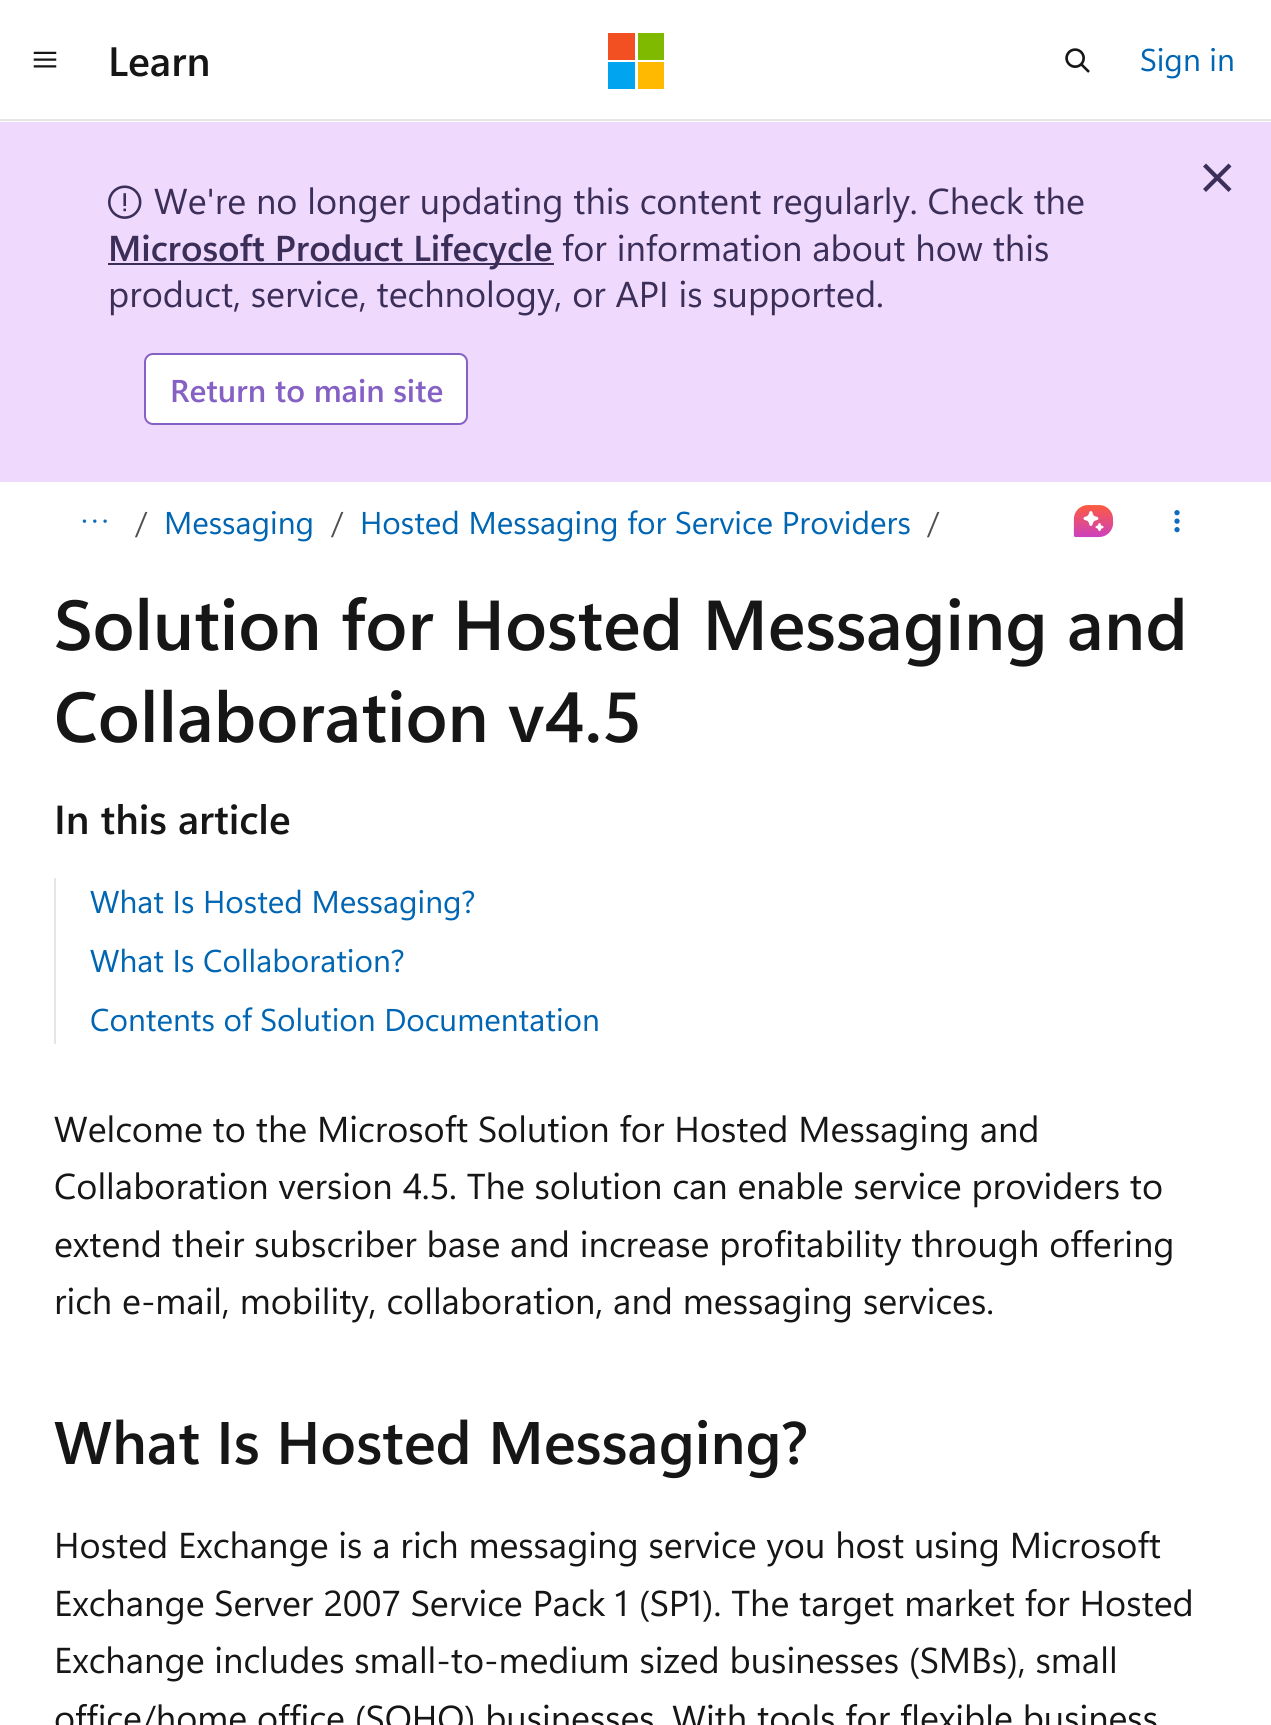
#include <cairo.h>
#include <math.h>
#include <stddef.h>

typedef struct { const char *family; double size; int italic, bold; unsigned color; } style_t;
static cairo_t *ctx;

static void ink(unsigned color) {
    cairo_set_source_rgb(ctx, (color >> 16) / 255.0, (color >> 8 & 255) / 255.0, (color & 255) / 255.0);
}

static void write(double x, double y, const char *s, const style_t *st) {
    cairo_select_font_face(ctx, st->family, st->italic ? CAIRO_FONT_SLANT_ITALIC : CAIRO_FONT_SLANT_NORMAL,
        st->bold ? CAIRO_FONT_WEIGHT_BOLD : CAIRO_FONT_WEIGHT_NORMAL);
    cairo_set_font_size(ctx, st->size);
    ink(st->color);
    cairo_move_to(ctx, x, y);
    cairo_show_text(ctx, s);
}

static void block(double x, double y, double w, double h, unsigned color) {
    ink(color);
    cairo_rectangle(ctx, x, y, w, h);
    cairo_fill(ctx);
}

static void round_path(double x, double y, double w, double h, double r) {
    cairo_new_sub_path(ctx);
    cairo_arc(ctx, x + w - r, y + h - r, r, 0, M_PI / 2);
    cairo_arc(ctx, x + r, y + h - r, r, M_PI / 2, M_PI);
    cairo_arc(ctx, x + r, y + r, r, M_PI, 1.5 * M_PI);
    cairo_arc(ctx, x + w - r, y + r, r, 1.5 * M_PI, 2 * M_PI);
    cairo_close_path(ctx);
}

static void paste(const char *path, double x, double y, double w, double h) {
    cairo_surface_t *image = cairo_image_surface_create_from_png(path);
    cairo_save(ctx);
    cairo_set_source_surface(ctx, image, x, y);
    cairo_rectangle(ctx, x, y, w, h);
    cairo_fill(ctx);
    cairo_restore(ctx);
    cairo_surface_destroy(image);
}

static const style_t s1 = {"Segoe UI SemiBold", 41, 0, 0, 0x161616};
static const style_t s2 = {"Segoe UI", 31.5, 0, 0, 0x0065b3};
static const style_t s3 = {"Segoe UI", 36, 0, 0, 0x3b2e58};
static const style_t s4 = {"Segoe UI SemiBold", 36, 0, 0, 0x3b2e58};
static const style_t s5 = {"Segoe UI SemiBold", 31.5, 0, 0, 0x8661c5};
static const style_t s6 = {"Segoe UI", 31.5, 0, 0, 0x505050};
static const style_t s7 = {"Segoe UI SemiBold", 70.6, 0, 0, 0x161616};
static const style_t s8 = {"Segoe UI SemiBold", 40.5, 0, 0, 0x161616};
static const style_t s9 = {"Segoe UI", 36, 0, 0, 0x161616};
static const style_t s10 = {"Segoe UI SemiBold", 60, 0, 0, 0x161616};

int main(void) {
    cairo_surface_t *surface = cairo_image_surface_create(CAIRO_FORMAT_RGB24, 1271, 1725);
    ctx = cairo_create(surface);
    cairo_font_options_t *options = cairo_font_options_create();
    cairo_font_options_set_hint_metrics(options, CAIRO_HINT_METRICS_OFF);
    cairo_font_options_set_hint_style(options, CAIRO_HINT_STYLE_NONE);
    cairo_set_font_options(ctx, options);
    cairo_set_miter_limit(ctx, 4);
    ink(0xffffff);
    cairo_paint(ctx);
    block(0, 119, 1271, 2, 0xe6e6e6);
    paste("pic1.png", 33, 51, 24, 17);
    write(108, 76, "Learn", &s1);
    block(608, 33, 27, 27, 0xf25022);
    block(638, 33, 26, 27, 0x7fba00);
    block(608, 62, 27, 27, 0x00a4ef);
    block(638, 62, 26, 27, 0xffb900);
    paste("pic2.png", 1065, 48, 25, 25);
    write(1140, 71, "Sign in", &s2);
    block(0, 122, 1271, 360, 0xefd9fd);
    ink(0x3b2e58);
    cairo_new_path(ctx);
    cairo_move_to(ctx, 1206, 163.5);
    cairo_line_to(ctx, 1231.5, 189);
    cairo_line_to(ctx, 1228.5, 192);
    cairo_line_to(ctx, 1203, 166.5);
    cairo_close_path(ctx);
    cairo_fill(ctx);
    cairo_new_path(ctx);
    cairo_move_to(ctx, 1228.5, 163.5);
    cairo_line_to(ctx, 1231.5, 166.5);
    cairo_line_to(ctx, 1206, 192);
    cairo_line_to(ctx, 1203, 189);
    cairo_close_path(ctx);
    cairo_fill(ctx);
    paste("pic3.png", 108, 185, 34, 34);
    write(154, 214, "We're no longer updating this content regularly. Check the", &s3);
    block(108, 263, 446, 2, 0x3b2e58);
    write(108, 261, "Microsoft Product Lifecycle", &s4);
    write(562, 261, "for information about how this", &s3);
    write(108, 307, "product, service, technology, or API is supported.", &s3);
    ink(0xffffff);
    round_path(145, 354, 322, 70, 8);
    cairo_fill_preserve(ctx);
    ink(0x8661c5);
    cairo_stroke(ctx);
    write(170, 402, "Return to main site", &s5);
    paste("pic4.png", 82, 519, 25, 4);
    write(135, 534, "/", &s6);
    write(164, 534, "Messaging", &s2);
    write(331, 534, "/", &s6);
    write(360, 534, "Hosted Messaging for Service Providers", &s2);
    write(927, 534, "/", &s6);
    paste("pic5.png", 1073, 505, 41, 33);
    paste("pic6.png", 1174, 510, 6, 23);
    write(54, 650, "Solution for Hosted Messaging and", &s7);
    write(54, 742, "Collaboration v4.5", &s7);
    write(54, 834, "In this article", &s8);
    block(54, 878, 2, 166, 0xe6e6e6);
    write(90, 913, "What Is Hosted Messaging?", &s2);
    write(90, 972, "What Is Collaboration?", &s2);
    write(90, 1031, "Contents of Solution Documentation", &s2);
    write(54, 1142, "Welcome to the Microsoft Solution for Hosted Messaging and", &s9);
    write(54, 1199, "Collaboration version 4.5. The solution can enable service providers to", &s9);
    write(54, 1257, "extend their subscriber base and increase profitability through offering", &s9);
    write(54, 1314, "rich e-mail, mobility, collaboration, and messaging services.", &s9);
    write(54, 1464, "What Is Hosted Messaging?", &s10);
    write(54, 1558, "Hosted Exchange is a rich messaging service you host using Microsoft", &s9);
    write(54, 1616, "Exchange Server 2007 Service Pack 1 (SP1). The target market for Hosted", &s9);
    write(54, 1673, "Exchange includes small-to-medium sized businesses (SMBs), small", &s9);
    write(54, 1731, "office/home office (SOHO) businesses. With tools for flexible business", &s9);
    cairo_surface_write_to_png(surface, "screenshot.png");
    cairo_font_options_destroy(options);
    cairo_destroy(ctx);
    cairo_surface_destroy(surface);
    return 0;
}
